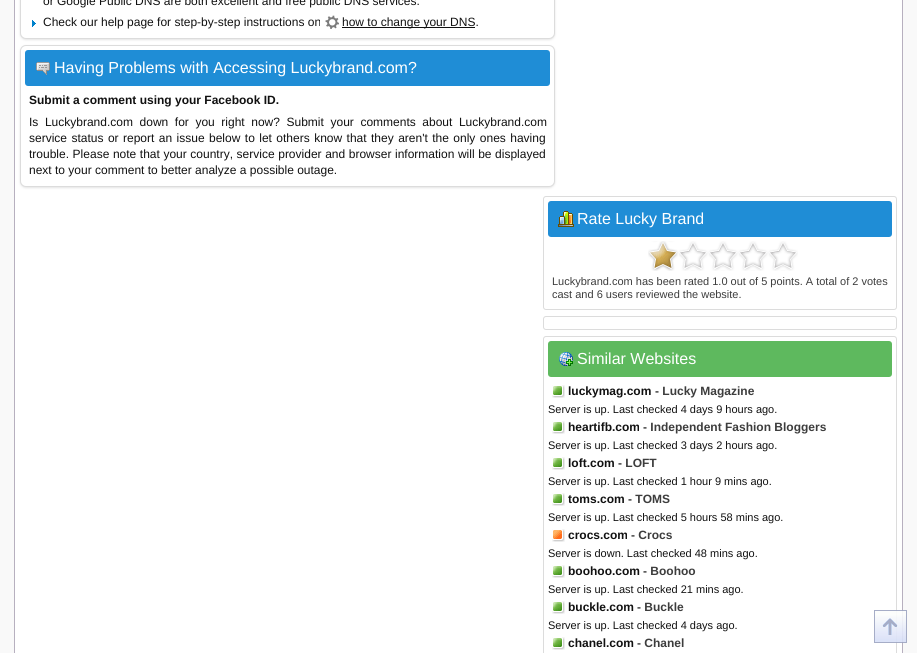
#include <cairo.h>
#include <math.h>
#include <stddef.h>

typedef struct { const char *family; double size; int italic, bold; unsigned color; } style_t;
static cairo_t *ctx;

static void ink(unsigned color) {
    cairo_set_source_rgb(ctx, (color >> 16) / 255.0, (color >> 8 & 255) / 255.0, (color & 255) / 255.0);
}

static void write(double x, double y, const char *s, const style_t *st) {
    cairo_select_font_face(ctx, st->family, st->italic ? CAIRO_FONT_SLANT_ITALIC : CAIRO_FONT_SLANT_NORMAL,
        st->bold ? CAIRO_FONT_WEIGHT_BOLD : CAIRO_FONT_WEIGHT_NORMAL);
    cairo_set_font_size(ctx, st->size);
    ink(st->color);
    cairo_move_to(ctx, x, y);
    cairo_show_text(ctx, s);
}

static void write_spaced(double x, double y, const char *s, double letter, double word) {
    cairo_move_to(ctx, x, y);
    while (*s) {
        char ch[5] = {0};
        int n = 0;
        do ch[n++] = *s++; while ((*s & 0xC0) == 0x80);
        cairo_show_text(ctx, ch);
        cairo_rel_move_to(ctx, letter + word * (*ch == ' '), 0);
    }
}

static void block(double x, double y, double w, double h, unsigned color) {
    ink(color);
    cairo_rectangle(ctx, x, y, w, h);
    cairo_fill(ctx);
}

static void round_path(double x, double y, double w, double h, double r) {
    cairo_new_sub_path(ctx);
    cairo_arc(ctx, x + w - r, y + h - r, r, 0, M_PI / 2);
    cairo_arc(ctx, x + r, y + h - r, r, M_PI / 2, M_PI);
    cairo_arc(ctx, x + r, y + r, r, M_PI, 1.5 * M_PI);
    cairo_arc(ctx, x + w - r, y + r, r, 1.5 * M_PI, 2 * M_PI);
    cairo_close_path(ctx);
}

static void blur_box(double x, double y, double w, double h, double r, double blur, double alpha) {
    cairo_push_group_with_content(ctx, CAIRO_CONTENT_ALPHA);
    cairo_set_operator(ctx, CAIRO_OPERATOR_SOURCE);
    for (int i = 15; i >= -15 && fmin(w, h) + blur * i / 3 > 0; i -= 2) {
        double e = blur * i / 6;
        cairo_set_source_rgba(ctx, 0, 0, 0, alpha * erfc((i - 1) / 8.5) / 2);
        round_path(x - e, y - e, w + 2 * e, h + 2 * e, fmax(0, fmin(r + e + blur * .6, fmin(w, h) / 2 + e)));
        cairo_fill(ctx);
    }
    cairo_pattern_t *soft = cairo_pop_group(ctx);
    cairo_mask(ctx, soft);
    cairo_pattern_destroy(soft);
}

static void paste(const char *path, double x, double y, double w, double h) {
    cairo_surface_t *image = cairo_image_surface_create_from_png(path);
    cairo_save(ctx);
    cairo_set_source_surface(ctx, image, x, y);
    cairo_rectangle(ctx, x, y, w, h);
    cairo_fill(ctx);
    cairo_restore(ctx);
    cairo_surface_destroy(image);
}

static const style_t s1 = {"Liberation Sans", 12, 0, 0, 0x111111};
static const style_t s2 = {"Liberation Sans", 16, 0, 0, 0xffffff};
static const style_t s3 = {"Liberation Sans", 12, 0, 1, 0x111111};
static const style_t s4 = {"Liberation Sans", 11, 0, 0, 0x3d3d3d};
static const style_t s5 = {"Liberation Sans", 12, 0, 1, 0x3d3d3d};
static const style_t s6 = {"Liberation Sans", 11, 0, 0, 0x111111};

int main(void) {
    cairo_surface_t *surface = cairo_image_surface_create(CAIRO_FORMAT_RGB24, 917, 653);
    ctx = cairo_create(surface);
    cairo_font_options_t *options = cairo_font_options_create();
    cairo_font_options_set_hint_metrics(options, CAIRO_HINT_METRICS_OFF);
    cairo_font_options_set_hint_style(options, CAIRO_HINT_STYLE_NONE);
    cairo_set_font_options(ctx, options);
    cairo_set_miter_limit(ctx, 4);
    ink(0xf9f9f9);
    cairo_paint(ctx);
    ink(0xffffff);
    cairo_rectangle(ctx, 14.5, -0.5, 888, 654);
    cairo_fill_preserve(ctx);
    ink(0xb7b0bf);
    cairo_set_line_width(ctx, 1);
    cairo_stroke(ctx);
    ink(0xe5e5e5);
    blur_box(20, -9, 535, 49, 6, 1, 1);
    ink(0xffffff);
    round_path(20.5, -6.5, 534, 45, 5.5);
    cairo_fill_preserve(ctx);
    ink(0xdcdcdc);
    cairo_stroke(ctx);
    write(43, 5, "or Google Public DNS are both excellent and free public DNS services.", &s1);
    paste("pic1.png", 32, 20, 4, 7);
    write(43, 26, "Check our help page for step-by-step instructions on", &s1);
    paste("pic2.png", 325, 15, 14, 14);
    block(342, 27, 133, 1, 0x111111);
    write(342, 26, "how to change your DNS.", &s1);
    ink(0xe5e5e5);
    blur_box(20, 46, 535, 142, 6, 1, 1);
    ink(0xffffff);
    round_path(20.5, 45.5, 534, 141, 5.5);
    cairo_fill_preserve(ctx);
    ink(0xdcdcdc);
    cairo_stroke(ctx);
    ink(0x1f8dd6);
    round_path(25, 50, 525, 36, 3);
    cairo_fill(ctx);
    paste("pic3.png", 36, 62, 14, 13);
    write(54, 73, "Having Problems with Accessing Luckybrand.com?", &s2);
    write(29, 104, "Submit a comment using your Facebook ID.", &s3);
    cairo_select_font_face(ctx, "Liberation Sans", CAIRO_FONT_SLANT_NORMAL, CAIRO_FONT_WEIGHT_NORMAL);
    write_spaced(29, 126, "Is Luckybrand.com down for you right now? Submit your comments about Luckybrand.com", 0, 3.25);
    write_spaced(29, 142, "service status or report an issue below to let others know that they aren't the only ones having", 0, 1.1);
    write_spaced(29, 158, "trouble. Please note that your country, service provider and browser information will be displayed", 0, 0.25);
    write(29, 174, "next to your comment to better analyze a possible outage.", &s1);
    round_path(543.5, 196.5, 353, 113, 2.5);
    ink(0xdcdcdc);
    cairo_stroke(ctx);
    ink(0x1f8dd6);
    round_path(548, 201, 344, 36, 3);
    cairo_fill(ctx);
    paste("pic4.png", 558, 211, 16, 16);
    write(577, 224, "Rate Lucky Brand", &s2);
    paste("pic5.png", 678, 241, 120, 30);
    paste("pic6.png", 648, 241, 30, 30);
    write(552, 285, "Luckybrand.com has been rated 1.0 out of 5 points. A total of 2 votes", &s4);
    write(552, 298, "cast and 6 users reviewed the website.", &s4);
    round_path(543.5, 316.5, 353, 13, 2.5);
    ink(0xdcdcdc);
    cairo_stroke(ctx);
    round_path(543.5, 336.5, 353, 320, 2.5);
    cairo_stroke(ctx);
    ink(0x5eb95e);
    round_path(548, 341, 344, 36, 3);
    cairo_fill(ctx);
    paste("pic7.png", 559, 352, 14, 14);
    write(577, 364, "Similar Websites", &s2);
    paste("pic8.png", 552, 385, 13, 13);
    write(568, 395, "luckymag.com", &s3);
    write(655, 395, "- Lucky Magazine", &s5);
    write(548, 413, "Server is up. Last checked 4 days 9 hours ago.", &s6);
    paste("pic8.png", 552, 421, 13, 13);
    write(568, 431, "heartifb.com", &s3);
    write(643, 431, "- Independent Fashion Bloggers", &s5);
    write(548, 449, "Server is up. Last checked 3 days 2 hours ago.", &s6);
    paste("pic8.png", 552, 457, 13, 13);
    write(568, 467, "loft.com", &s3);
    write(618, 467, "- LOFT", &s5);
    write(548, 485, "Server is up. Last checked 1 hour 9 mins ago.", &s6);
    paste("pic8.png", 552, 493, 13, 13);
    write(568, 503, "toms.com", &s3);
    write(628, 503, "- TOMS", &s5);
    write(548, 521, "Server is up. Last checked 5 hours 58 mins ago.", &s6);
    paste("pic9.png", 552, 529, 13, 13);
    write(568, 539, "crocs.com", &s3);
    write(631, 539, "- Crocs", &s5);
    write(548, 557, "Server is down. Last checked 48 mins ago.", &s6);
    paste("pic8.png", 552, 565, 13, 13);
    write(568, 575, "boohoo.com", &s3);
    write(643, 575, "- Boohoo", &s5);
    write(548, 593, "Server is up. Last checked 21 mins ago.", &s6);
    paste("pic8.png", 552, 601, 13, 13);
    write(568, 611, "buckle.com", &s3);
    write(637, 611, "- Buckle", &s5);
    write(548, 629, "Server is up. Last checked 4 days ago.", &s6);
    paste("pic8.png", 552, 637, 13, 13);
    write(568, 647, "chanel.com", &s3);
    write(637, 647, "- Chanel", &s5);
    paste("pic10.png", 874, 610, 33, 33);
    cairo_surface_write_to_png(surface, "screenshot.png");
    cairo_font_options_destroy(options);
    cairo_destroy(ctx);
    cairo_surface_destroy(surface);
    return 0;
}
